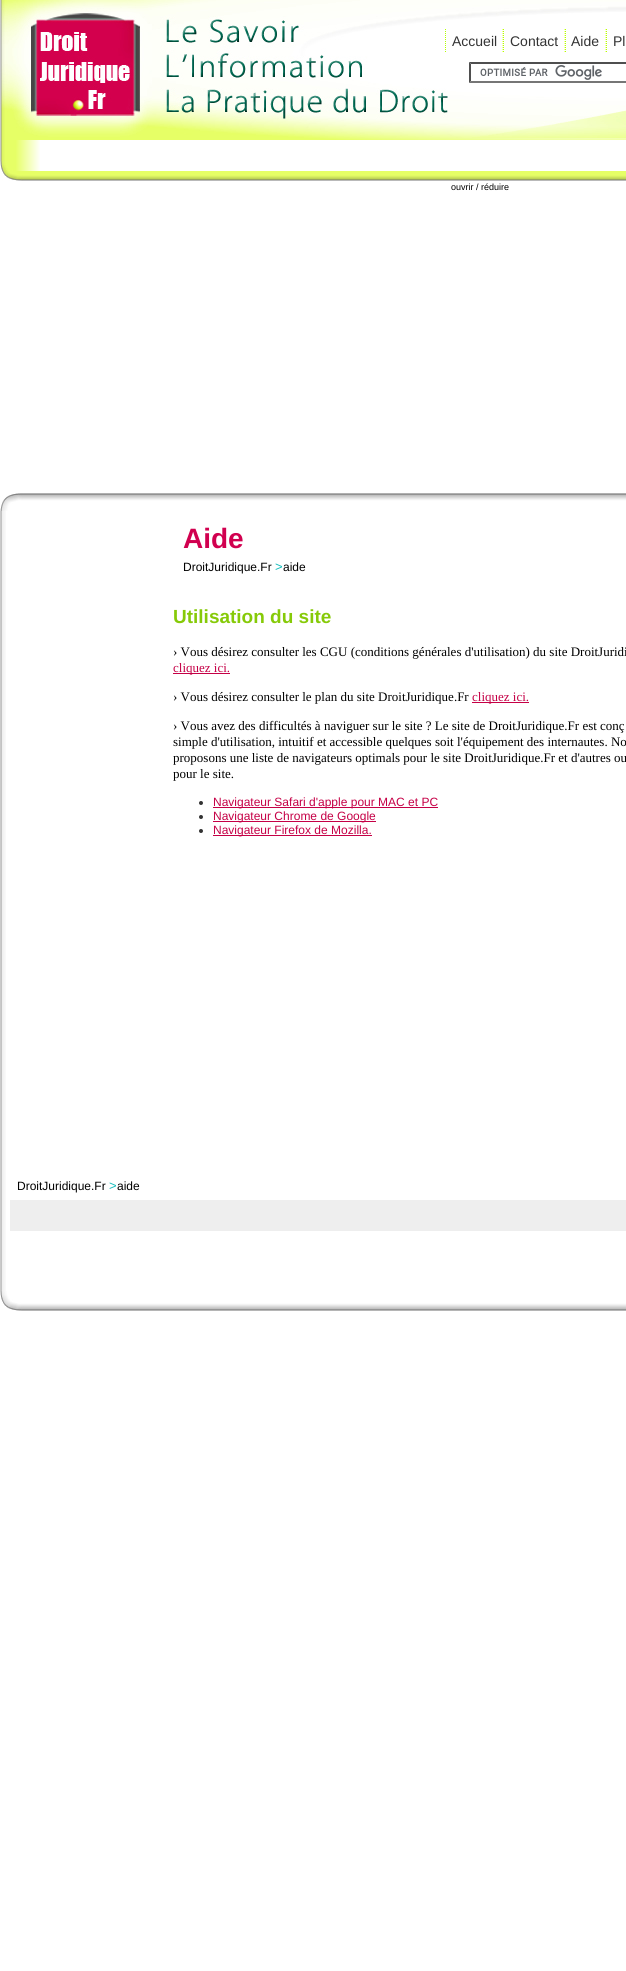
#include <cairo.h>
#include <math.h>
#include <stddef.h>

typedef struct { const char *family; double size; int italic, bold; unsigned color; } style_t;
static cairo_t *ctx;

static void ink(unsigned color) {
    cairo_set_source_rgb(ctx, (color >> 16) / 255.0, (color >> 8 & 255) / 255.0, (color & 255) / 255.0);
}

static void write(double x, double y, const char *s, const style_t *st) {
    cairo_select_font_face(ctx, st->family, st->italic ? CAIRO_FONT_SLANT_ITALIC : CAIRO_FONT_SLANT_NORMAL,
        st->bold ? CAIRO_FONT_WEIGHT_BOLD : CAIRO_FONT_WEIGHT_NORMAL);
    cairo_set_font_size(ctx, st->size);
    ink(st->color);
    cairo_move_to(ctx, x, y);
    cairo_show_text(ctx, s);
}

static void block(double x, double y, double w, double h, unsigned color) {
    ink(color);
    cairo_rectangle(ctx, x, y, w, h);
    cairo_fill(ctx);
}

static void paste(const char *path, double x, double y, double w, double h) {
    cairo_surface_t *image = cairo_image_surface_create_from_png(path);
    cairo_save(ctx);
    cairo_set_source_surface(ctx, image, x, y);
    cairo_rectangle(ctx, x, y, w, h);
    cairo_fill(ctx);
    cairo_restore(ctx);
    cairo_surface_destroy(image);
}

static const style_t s1 = {"Liberation Sans", 14, 0, 0, 0x333333};
static const style_t s2 = {"Liberation Sans", 9, 0, 0, 0x000000};
static const style_t s3 = {"Liberation Sans", 28, 0, 1, 0xd1004f};
static const style_t s4 = {"Liberation Sans", 12, 0, 0, 0x000000};
static const style_t s5 = {"Liberation Sans", 13, 0, 0, 0x11bbbb};
static const style_t s6 = {"Liberation Sans", 19, 0, 1, 0x86ca08};
static const style_t s7 = {"Liberation Serif", 13, 0, 0, 0x000000};
static const style_t s8 = {"Liberation Serif", 13, 0, 0, 0xc50046};
static const style_t s9 = {"Liberation Sans", 12, 0, 0, 0xc50046};

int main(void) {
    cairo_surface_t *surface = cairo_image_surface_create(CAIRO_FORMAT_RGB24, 626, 1971);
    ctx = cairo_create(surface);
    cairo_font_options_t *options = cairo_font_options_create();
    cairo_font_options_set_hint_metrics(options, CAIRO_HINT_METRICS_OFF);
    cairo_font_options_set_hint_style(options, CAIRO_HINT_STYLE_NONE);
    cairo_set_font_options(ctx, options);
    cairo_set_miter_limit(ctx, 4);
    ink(0xffffff);
    cairo_paint(ctx);
    paste("pic1.png", 0, 0, 626, 181);
    cairo_new_path(ctx);
    cairo_move_to(ctx, 502.5, 29);
    cairo_line_to(ctx, 502.5, 53);
    ink(0xefff9c);
    cairo_set_line_width(ctx, 1);
    cairo_set_dash(ctx, (double[]){1, 1}, 2, 0);
    cairo_stroke(ctx);
    cairo_new_path(ctx);
    cairo_move_to(ctx, 445.5, 29);
    cairo_line_to(ctx, 445.5, 53);
    ink(0xb3ff02);
    cairo_stroke(ctx);
    write(452, 46, "Accueil", &s1);
    cairo_new_path(ctx);
    cairo_move_to(ctx, 564.5, 29);
    cairo_line_to(ctx, 564.5, 53);
    ink(0xefff9c);
    cairo_stroke(ctx);
    cairo_new_path(ctx);
    cairo_move_to(ctx, 503.5, 29);
    cairo_line_to(ctx, 503.5, 53);
    ink(0xb3ff02);
    cairo_stroke(ctx);
    write(510, 46, "Contact", &s1);
    cairo_new_path(ctx);
    cairo_move_to(ctx, 605.5, 29);
    cairo_line_to(ctx, 605.5, 53);
    ink(0xefff9c);
    cairo_stroke(ctx);
    cairo_new_path(ctx);
    cairo_move_to(ctx, 565.5, 29);
    cairo_line_to(ctx, 565.5, 53);
    ink(0xb3ff02);
    cairo_stroke(ctx);
    write(571, 46, "Aide", &s1);
    cairo_new_path(ctx);
    cairo_move_to(ctx, 606.5, 29);
    cairo_line_to(ctx, 606.5, 53);
    ink(0xb3ff02);
    cairo_stroke(ctx);
    write(613, 46, "Pl", &s1);
    paste("pic2.png", 480, 65, 122, 15);
    ink(0x4f4f4f);
    cairo_new_path(ctx);
    cairo_move_to(ctx, 469, 62);
    cairo_line_to(ctx, 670, 62);
    cairo_line_to(ctx, 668, 64);
    cairo_line_to(ctx, 471, 64);
    cairo_close_path(ctx);
    cairo_fill(ctx);
    ink(0x767676);
    cairo_new_path(ctx);
    cairo_move_to(ctx, 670, 83);
    cairo_line_to(ctx, 469, 83);
    cairo_line_to(ctx, 471, 81);
    cairo_line_to(ctx, 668, 81);
    cairo_close_path(ctx);
    cairo_fill(ctx);
    ink(0x4f4f4f);
    cairo_new_path(ctx);
    cairo_move_to(ctx, 469, 83);
    cairo_line_to(ctx, 469, 62);
    cairo_line_to(ctx, 471, 64);
    cairo_line_to(ctx, 471, 81);
    cairo_close_path(ctx);
    cairo_fill(ctx);
    paste("pic3.png", 16, 138, 610, 33);
    write(451, 190, "ouvrir / réduire", &s2);
    paste("pic4.png", 0, 511, 6, 780);
    paste("pic5.png", 0, 492, 626, 19);
    write(183, 548, "Aide", &s3);
    write(183, 571, "DroitJuridique.Fr", &s4);
    write(275, 571, ">", &s5);
    write(283, 571, "aide", &s4);
    write(173, 623, "Utilisation du site", &s6);
    write(173, 656, "› Vous désirez consulter les CGU (conditions générales d'utilisation) du site DroitJuridi", &s7);
    block(173, 673, 57, 1, 0xc50046);
    write(173, 672, "cliquez ici.", &s8);
    write(173, 701, "› Vous désirez consulter le plan du site DroitJuridique.Fr", &s7);
    block(472, 702, 57, 1, 0xc50046);
    write(472, 701, "cliquez ici.", &s8);
    write(173, 730, "› Vous avez des difficultés à naviguer sur le site ? Le site de DroitJuridique.Fr est conç", &s7);
    write(173, 746, "simple d'utilisation, intuitif et accessible quelques soit l'équipement des internautes. No", &s7);
    write(173, 762, "proposons une liste de navigateurs optimals pour le site DroitJuridique.Fr et d'autres ou", &s7);
    write(173, 778, "pour le site.", &s7);
    ink(0x333333);
    cairo_new_path(ctx);
    cairo_arc(ctx, 201, 803, 2, 0, 2 * M_PI);
    cairo_fill(ctx);
    block(213, 807, 225, 1, 0xc50046);
    write(213, 806, "Navigateur Safari d'apple pour MAC et PC", &s9);
    ink(0x333333);
    cairo_new_path(ctx);
    cairo_arc(ctx, 201, 817, 2, 0, 2 * M_PI);
    cairo_fill(ctx);
    block(213, 821, 163, 1, 0xc50046);
    write(213, 820, "Navigateur Chrome de Google", &s9);
    ink(0x333333);
    cairo_new_path(ctx);
    cairo_arc(ctx, 201, 831, 2, 0, 2 * M_PI);
    cairo_fill(ctx);
    block(213, 835, 159, 1, 0xc50046);
    write(213, 834, "Navigateur Firefox de Mozilla.", &s9);
    write(17, 1190, "DroitJuridique.Fr", &s4);
    write(109, 1190, ">", &s5);
    write(117, 1190, "aide", &s4);
    block(10, 1200, 616, 31, 0xeeeeee);
    paste("pic6.png", 0, 1291, 626, 20);
    cairo_surface_write_to_png(surface, "screenshot.png");
    cairo_font_options_destroy(options);
    cairo_destroy(ctx);
    cairo_surface_destroy(surface);
    return 0;
}
